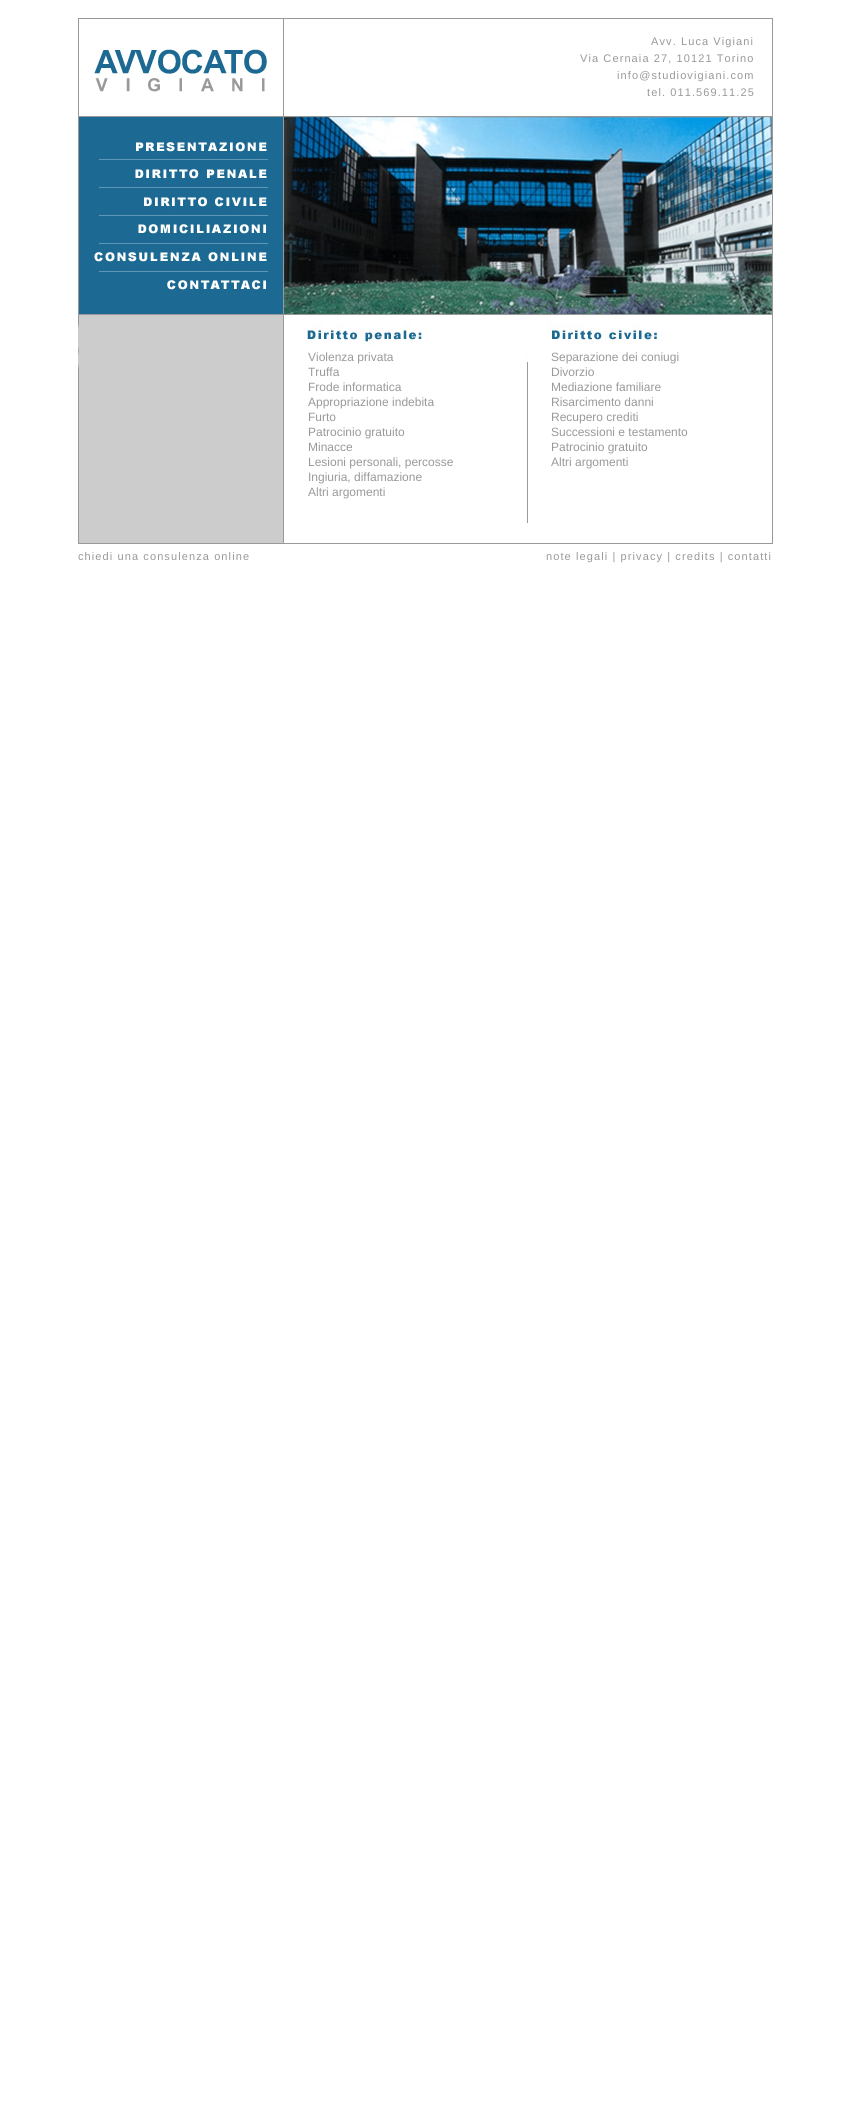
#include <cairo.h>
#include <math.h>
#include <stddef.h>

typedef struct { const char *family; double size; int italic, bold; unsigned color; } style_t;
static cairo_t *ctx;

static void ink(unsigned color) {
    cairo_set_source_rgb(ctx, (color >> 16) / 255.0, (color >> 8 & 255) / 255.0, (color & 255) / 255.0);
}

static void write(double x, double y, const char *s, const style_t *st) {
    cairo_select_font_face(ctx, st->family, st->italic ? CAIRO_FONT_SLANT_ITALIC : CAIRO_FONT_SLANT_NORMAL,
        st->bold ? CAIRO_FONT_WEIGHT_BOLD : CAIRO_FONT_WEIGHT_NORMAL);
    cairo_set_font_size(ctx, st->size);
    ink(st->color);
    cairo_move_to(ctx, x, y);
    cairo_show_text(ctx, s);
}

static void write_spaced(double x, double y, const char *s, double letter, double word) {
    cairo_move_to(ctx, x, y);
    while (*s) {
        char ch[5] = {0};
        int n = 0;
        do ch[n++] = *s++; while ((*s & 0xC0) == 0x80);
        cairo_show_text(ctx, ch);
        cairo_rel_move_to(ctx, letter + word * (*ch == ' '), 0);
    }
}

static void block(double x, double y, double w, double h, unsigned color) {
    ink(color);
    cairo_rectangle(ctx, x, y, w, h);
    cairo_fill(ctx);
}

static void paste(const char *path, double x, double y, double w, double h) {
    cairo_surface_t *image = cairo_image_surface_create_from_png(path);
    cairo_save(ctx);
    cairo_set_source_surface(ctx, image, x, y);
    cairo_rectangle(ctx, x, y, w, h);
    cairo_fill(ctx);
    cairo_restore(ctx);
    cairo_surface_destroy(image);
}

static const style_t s1 = {"Liberation Sans", 12, 0, 0, 0x999999};

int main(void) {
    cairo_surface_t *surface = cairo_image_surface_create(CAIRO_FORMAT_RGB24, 850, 2127);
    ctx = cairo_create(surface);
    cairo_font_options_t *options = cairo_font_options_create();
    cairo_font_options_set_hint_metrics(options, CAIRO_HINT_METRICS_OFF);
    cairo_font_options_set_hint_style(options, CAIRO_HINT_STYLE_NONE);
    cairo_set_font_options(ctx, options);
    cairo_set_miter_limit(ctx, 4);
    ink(0xffffff);
    cairo_paint(ctx);
    paste("pic1.png", 78, 18, 205, 98);
    paste("pic2.png", 283, 18, 490, 98);
    cairo_select_font_face(ctx, "Liberation Sans", CAIRO_FONT_SLANT_NORMAL, CAIRO_FONT_WEIGHT_NORMAL);
    cairo_set_font_size(ctx, 11);
    ink(0x999999);
    write_spaced(651, 45, "Avv. Luca Vigiani", 1.1, 0);
    write_spaced(580, 62, "Via Cernaia 27, 10121 Torino", 1.1, 0);
    write_spaced(617, 79, "info@studiovigiani.com", 1.1, 0);
    write_spaced(647, 96, "tel. 011.569.11.25", 1.1, 0);
    paste("pic3.png", 78, 116, 205, 16);
    paste("pic4.png", 78, 132, 205, 28);
    paste("pic5.png", 78, 160, 205, 28);
    paste("pic6.png", 78, 188, 205, 28);
    paste("pic7.png", 78, 216, 205, 28);
    paste("pic8.png", 78, 244, 205, 28);
    paste("pic9.png", 78, 272, 205, 28);
    paste("pic10.png", 78, 300, 205, 15);
    paste("pic11.png", 283, 116, 490, 199);
    block(79, 315, 204, 228, 0xcccccc);
    paste("pic12.png", 78, 315, 1, 228);
    paste("pic13.png", 283, 315, 490, 228);
    write(308, 361, "Violenza privata", &s1);
    write(308, 376, "Truffa", &s1);
    write(308, 391, "Frode informatica", &s1);
    write(308, 406, "Appropriazione indebita", &s1);
    write(308, 421, "Furto", &s1);
    write(308, 436, "Patrocinio gratuito", &s1);
    write(308, 451, "Minacce", &s1);
    write(308, 466, "Lesioni personali, percosse", &s1);
    write(308, 481, "Ingiuria, diffamazione", &s1);
    write(308, 496, "Altri argomenti", &s1);
    write(551, 361, "Separazione dei coniugi", &s1);
    write(551, 376, "Divorzio", &s1);
    write(551, 391, "Mediazione familiare", &s1);
    write(551, 406, "Risarcimento danni", &s1);
    write(551, 421, "Recupero crediti", &s1);
    write(551, 436, "Successioni e testamento", &s1);
    write(551, 451, "Patrocinio gratuito", &s1);
    write(551, 466, "Altri argomenti", &s1);
    block(78, 543, 695, 1, 0x999999);
    cairo_set_font_size(ctx, 11);
    write_spaced(78, 560, "chiedi una consulenza online", 1.1, 0);
    write_spaced(546, 560, "note legali | privacy | credits | contatti", 1.1, 0);
    cairo_surface_write_to_png(surface, "screenshot.png");
    cairo_font_options_destroy(options);
    cairo_destroy(ctx);
    cairo_surface_destroy(surface);
    return 0;
}
